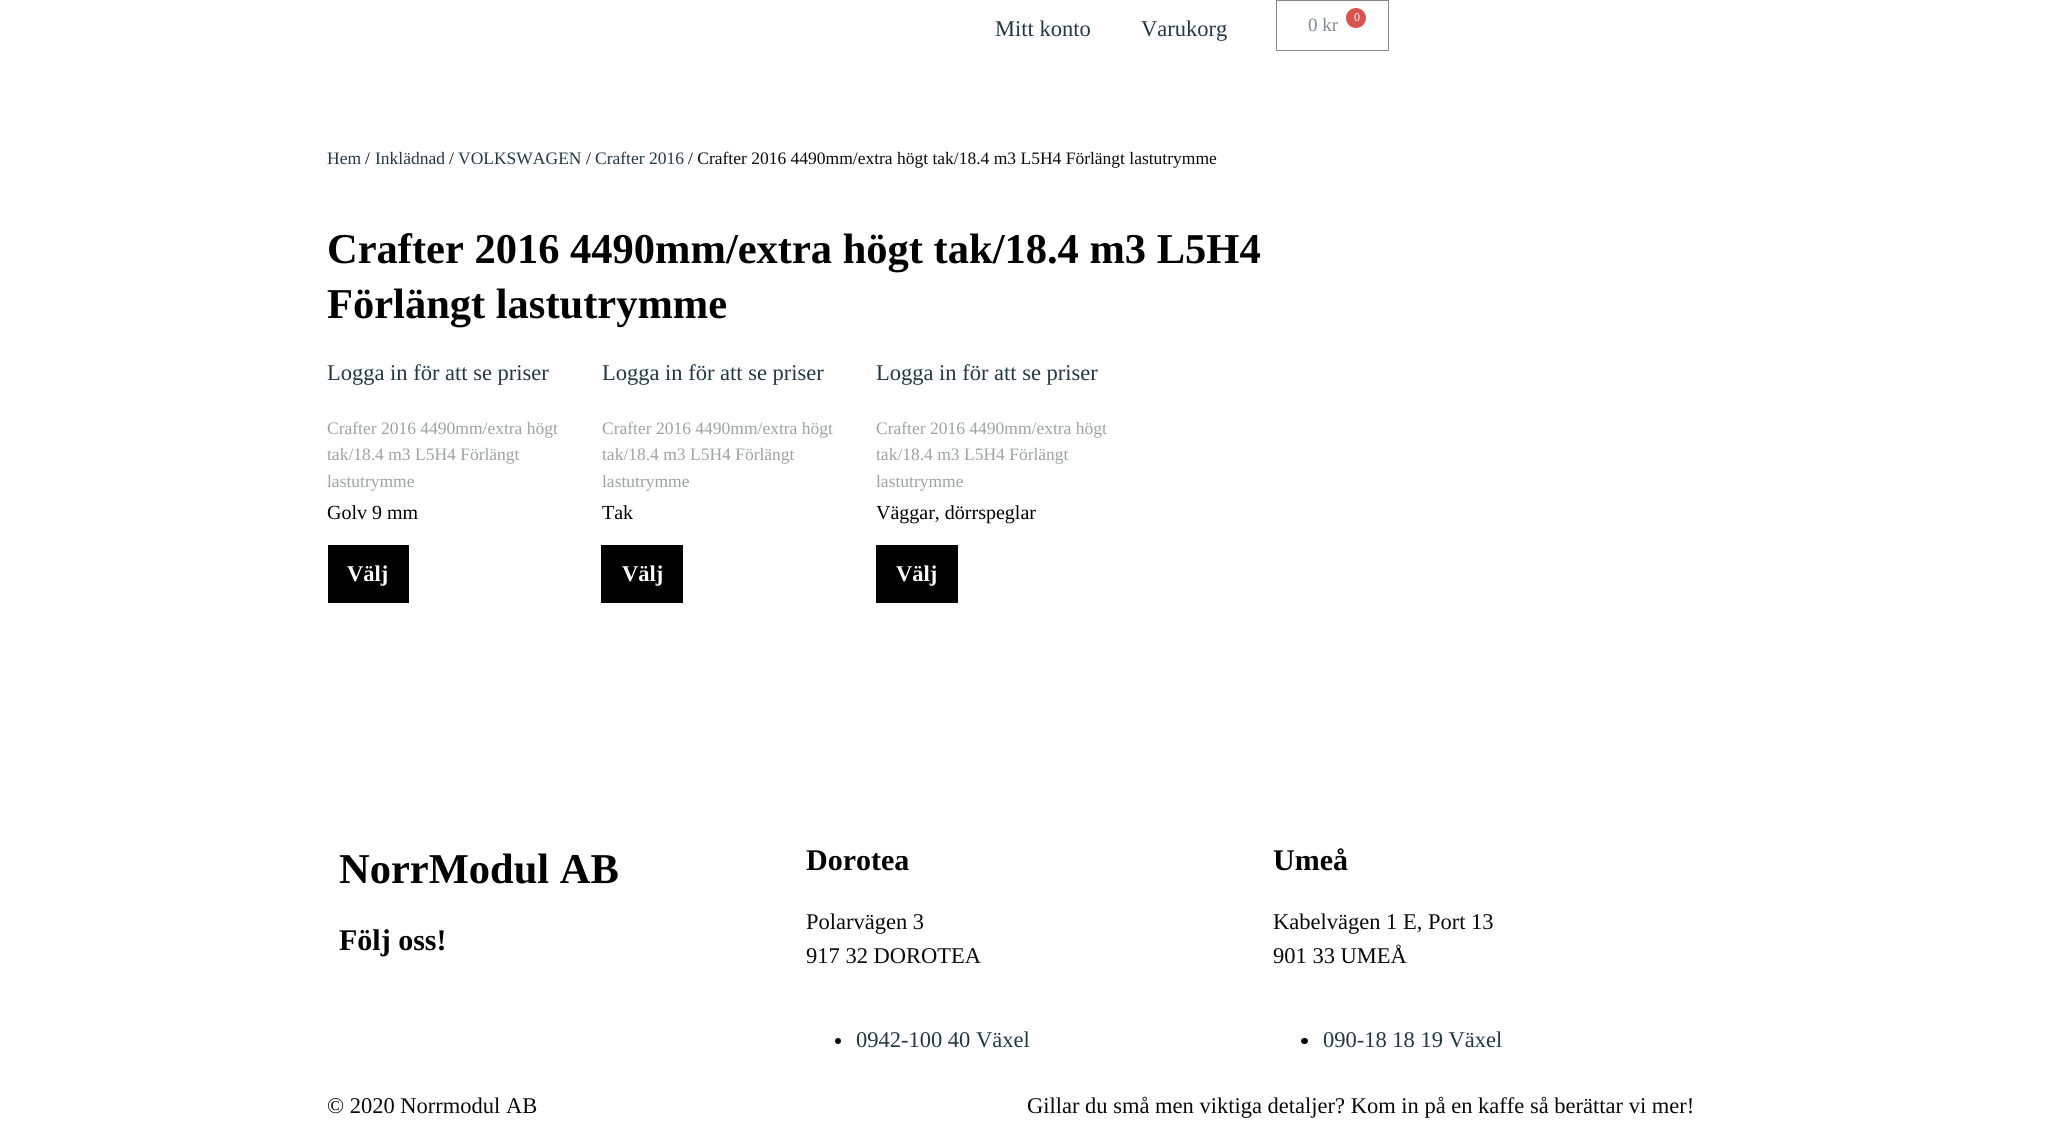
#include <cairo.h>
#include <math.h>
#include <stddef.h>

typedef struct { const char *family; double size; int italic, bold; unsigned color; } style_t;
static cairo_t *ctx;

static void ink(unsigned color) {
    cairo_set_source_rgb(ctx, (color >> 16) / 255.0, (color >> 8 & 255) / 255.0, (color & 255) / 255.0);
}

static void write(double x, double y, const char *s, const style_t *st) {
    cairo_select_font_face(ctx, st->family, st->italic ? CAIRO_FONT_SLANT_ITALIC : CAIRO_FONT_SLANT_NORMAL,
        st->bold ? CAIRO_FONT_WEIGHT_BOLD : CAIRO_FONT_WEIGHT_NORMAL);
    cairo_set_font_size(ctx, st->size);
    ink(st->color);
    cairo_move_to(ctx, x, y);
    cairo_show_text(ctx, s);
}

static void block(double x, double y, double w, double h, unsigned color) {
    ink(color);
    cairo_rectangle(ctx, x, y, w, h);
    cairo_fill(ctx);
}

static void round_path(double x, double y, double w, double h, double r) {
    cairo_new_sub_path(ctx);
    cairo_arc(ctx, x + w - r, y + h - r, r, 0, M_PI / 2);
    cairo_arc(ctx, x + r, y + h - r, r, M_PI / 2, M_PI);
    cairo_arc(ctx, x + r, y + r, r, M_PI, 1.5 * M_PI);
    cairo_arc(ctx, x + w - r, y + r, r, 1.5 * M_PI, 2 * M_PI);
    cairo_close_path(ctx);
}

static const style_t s1 = {"Liberation Serif", 22.5, 0, 0, 0x223843};
static const style_t s2 = {"Liberation Serif", 12, 0, 0, 0xffffff};
static const style_t s3 = {"Liberation Serif", 19, 0, 0, 0x818a91};
static const style_t s4 = {"Liberation Serif", 17.5, 0, 0, 0x223843};
static const style_t s5 = {"Liberation Serif", 17.5, 0, 0, 0x0a0a0a};
static const style_t s6 = {"Liberation Serif", 42.5, 0, 1, 0x000000};
static const style_t s7 = {"Liberation Serif", 17.5, 0, 0, 0x9fa1a4};
static const style_t s8 = {"Liberation Serif", 20, 0, 0, 0x000000};
static const style_t s9 = {"Liberation Serif", 22.5, 0, 1, 0xffffff};
static const style_t s10 = {"Liberation Serif", 30, 0, 1, 0x000000};
static const style_t s11 = {"Liberation Serif", 22.5, 0, 0, 0x0a0a0a};

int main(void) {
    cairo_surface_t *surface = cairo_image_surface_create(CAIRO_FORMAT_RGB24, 2053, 1133);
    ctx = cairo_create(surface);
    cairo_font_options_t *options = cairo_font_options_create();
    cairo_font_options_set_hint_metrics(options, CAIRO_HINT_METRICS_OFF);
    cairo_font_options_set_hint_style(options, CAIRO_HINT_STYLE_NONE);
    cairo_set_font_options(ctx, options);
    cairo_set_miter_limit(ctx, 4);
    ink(0xffffff);
    cairo_paint(ctx);
    write(995, 36, "Mitt konto", &s1);
    write(1141, 36, "Varukorg", &s1);
    cairo_rectangle(ctx, 1276.5, 0.5, 112, 50);
    ink(0x818a91);
    cairo_set_line_width(ctx, 1);
    cairo_stroke(ctx);
    ink(0xd9534f);
    cairo_arc(ctx, 1356, 18, 10, 0, 2 * M_PI);
    cairo_fill(ctx);
    write(1354, 21, "0", &s2);
    write(1308, 31, "0 kr", &s3);
    write(327, 164, "Hem", &s4);
    write(365, 164, "/", &s5);
    write(375, 164, "Inklädnad", &s4);
    write(449, 164, "/", &s5);
    write(458, 164, "VOLKSWAGEN", &s4);
    write(586, 164, "/", &s5);
    write(595, 164, "Crafter 2016", &s4);
    write(688, 164, "/ Crafter 2016 4490mm/extra högt tak/18.4 m3 L5H4 Förlängt lastutrymme", &s5);
    write(327, 263, "Crafter 2016 4490mm/extra högt tak/18.4 m3 L5H4", &s6);
    write(327, 318, "Förlängt lastutrymme", &s6);
    write(327, 380, "Logga in för att se priser", &s1);
    write(327, 434, "Crafter 2016 4490mm/extra högt", &s7);
    write(327, 460, "tak/18.4 m3 L5H4 Förlängt", &s7);
    write(327, 487, "lastutrymme", &s7);
    write(327, 519, "Golv 9 mm", &s8);
    block(328, 545, 81, 58, 0x000000);
    write(347, 581, "Välj", &s9);
    write(602, 380, "Logga in för att se priser", &s1);
    write(602, 434, "Crafter 2016 4490mm/extra högt", &s7);
    write(602, 460, "tak/18.4 m3 L5H4 Förlängt", &s7);
    write(602, 487, "lastutrymme", &s7);
    write(602, 519, "Tak", &s8);
    block(601, 545, 82, 58, 0x000000);
    write(622, 581, "Välj", &s9);
    write(876, 380, "Logga in för att se priser", &s1);
    write(876, 434, "Crafter 2016 4490mm/extra högt", &s7);
    write(876, 460, "tak/18.4 m3 L5H4 Förlängt", &s7);
    write(876, 487, "lastutrymme", &s7);
    write(876, 519, "Väggar, dörrspeglar", &s8);
    block(876, 545, 82, 58, 0x000000);
    write(896, 581, "Välj", &s9);
    write(339, 883, "NorrModul AB", &s6);
    write(339, 950, "Följ oss!", &s10);
    write(806, 870, "Dorotea", &s10);
    write(806, 929, "Polarvägen 3", &s11);
    write(806, 963, "917 32 DOROTEA", &s11);
    cairo_new_path(ctx);
    cairo_arc(ctx, 838, 1041, 3, 0, 2 * M_PI);
    cairo_fill(ctx);
    write(856, 1047, "0942-100 40 Växel", &s1);
    write(1273, 870, "Umeå", &s10);
    write(1273, 929, "Kabelvägen 1 E, Port 13", &s11);
    write(1273, 963, "901 33 UMEÅ", &s11);
    round_path(1301, 1038, 7, 6, 3);
    cairo_fill(ctx);
    write(1323, 1047, "090-18 18 19 Växel", &s1);
    write(327, 1113, "© 2020 Norrmodul AB", &s11);
    write(1027, 1113, "Gillar du små men viktiga detaljer? Kom in på en kaffe så berättar vi mer!", &s11);
    cairo_surface_write_to_png(surface, "screenshot.png");
    cairo_font_options_destroy(options);
    cairo_destroy(ctx);
    cairo_surface_destroy(surface);
    return 0;
}
